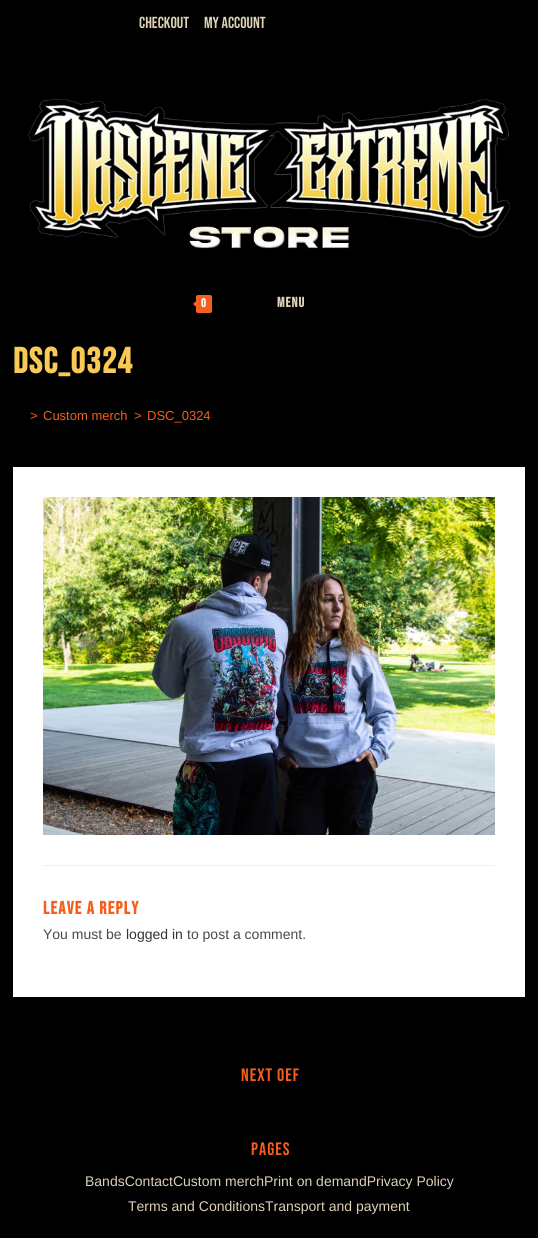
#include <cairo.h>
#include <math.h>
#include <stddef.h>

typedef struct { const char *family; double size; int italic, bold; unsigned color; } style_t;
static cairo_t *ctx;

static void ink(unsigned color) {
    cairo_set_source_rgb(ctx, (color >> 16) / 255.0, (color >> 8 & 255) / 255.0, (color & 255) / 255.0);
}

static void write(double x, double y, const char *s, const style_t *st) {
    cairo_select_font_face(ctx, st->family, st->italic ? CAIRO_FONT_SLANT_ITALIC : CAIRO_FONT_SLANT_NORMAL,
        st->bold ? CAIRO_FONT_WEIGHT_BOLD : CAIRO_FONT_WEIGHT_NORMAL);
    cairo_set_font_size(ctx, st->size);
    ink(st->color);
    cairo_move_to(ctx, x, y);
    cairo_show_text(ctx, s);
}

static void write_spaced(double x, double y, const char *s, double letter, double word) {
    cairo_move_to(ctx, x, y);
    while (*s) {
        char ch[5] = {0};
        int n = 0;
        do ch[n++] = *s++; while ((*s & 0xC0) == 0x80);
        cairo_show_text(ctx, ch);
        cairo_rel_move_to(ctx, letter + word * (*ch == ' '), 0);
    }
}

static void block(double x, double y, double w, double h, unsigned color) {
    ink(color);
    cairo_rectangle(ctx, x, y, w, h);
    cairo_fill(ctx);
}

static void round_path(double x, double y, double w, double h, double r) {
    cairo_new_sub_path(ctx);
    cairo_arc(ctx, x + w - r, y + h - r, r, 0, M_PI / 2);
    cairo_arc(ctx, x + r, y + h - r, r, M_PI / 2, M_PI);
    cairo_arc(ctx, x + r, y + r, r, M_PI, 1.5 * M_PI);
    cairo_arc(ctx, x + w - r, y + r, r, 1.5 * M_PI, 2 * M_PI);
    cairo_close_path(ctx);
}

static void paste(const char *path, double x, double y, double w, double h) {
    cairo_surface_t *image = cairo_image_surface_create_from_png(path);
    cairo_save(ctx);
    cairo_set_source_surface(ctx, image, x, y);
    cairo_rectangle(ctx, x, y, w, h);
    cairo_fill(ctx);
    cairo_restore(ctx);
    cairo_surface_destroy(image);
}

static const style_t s1 = {"Bebas Neue", 16, 0, 0, 0xddd2b7};
static const style_t s2 = {"Liberation Sans", 13, 0, 0, 0xf55e1b};
static const style_t s3 = {"Liberation Sans", 14, 0, 0, 0x4a4a4a};
static const style_t s4 = {"Liberation Sans", 14, 0, 0, 0x333333};
static const style_t s5 = {"Liberation Sans", 14, 0, 0, 0xddd2b7};

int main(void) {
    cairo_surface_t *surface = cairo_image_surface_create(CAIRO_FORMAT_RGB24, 538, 1238);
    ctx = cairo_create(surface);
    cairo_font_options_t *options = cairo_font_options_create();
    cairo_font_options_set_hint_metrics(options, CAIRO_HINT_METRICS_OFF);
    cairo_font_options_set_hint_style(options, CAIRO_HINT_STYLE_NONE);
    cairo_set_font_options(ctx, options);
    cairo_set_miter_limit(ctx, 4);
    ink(0x000000);
    cairo_paint(ctx);
    write(139, 28, "Checkout", &s1);
    write(204, 28, "My Account", &s1);
    paste("pic1.png", 28, 99, 482, 151);
    ink(0xf55e1b);
    round_path(196, 295, 16, 18, 2);
    cairo_fill(ctx);
    cairo_new_path(ctx);
    cairo_move_to(ctx, 198, 299);
    cairo_line_to(ctx, 198, 309);
    cairo_line_to(ctx, 193, 304);
    cairo_close_path(ctx);
    cairo_fill(ctx);
    cairo_select_font_face(ctx, "Bebas Neue", CAIRO_FONT_SLANT_NORMAL, CAIRO_FONT_WEIGHT_BOLD);
    cairo_set_font_size(ctx, 12);
    ink(0xffffff);
    write_spaced(201, 307, "0", 1, 0);
    cairo_set_font_size(ctx, 14);
    ink(0xddd2b7);
    write_spaced(277, 307, "MENU", 1, 0);
    cairo_set_font_size(ctx, 36);
    ink(0xf8c956);
    write_spaced(13, 373, "DSC_0324", 1.25, 0);
    write(30, 420, ">", &s2);
    write(43, 420, "Custom merch", &s2);
    write(134, 420, ">", &s2);
    write(147, 420, "DSC_0324", &s2);
    block(13, 467, 512, 530, 0xffffff);
    paste("pic2.png", 43, 497, 452, 338);
    block(43, 865, 452, 1, 0xf1f1f1);
    cairo_select_font_face(ctx, "Bebas Neue", CAIRO_FONT_SLANT_NORMAL, CAIRO_FONT_WEIGHT_BOLD);
    cairo_set_font_size(ctx, 18);
    ink(0xf55e1b);
    write_spaced(43, 914, "Leave a Reply", 1.25, 0);
    write(43, 939, "You must be", &s3);
    write(126, 939, "logged in", &s4);
    write(187, 939, "to post a comment.", &s3);
    cairo_select_font_face(ctx, "Bebas Neue", CAIRO_FONT_SLANT_NORMAL, CAIRO_FONT_WEIGHT_NORMAL);
    cairo_set_font_size(ctx, 18);
    ink(0xf55e1b);
    write_spaced(241, 1081, "Next OEF", 1, 0);
    write_spaced(251, 1155, "Pages", 1, 0);
    write(85, 1186, "BandsContactCustom merchPrint on demandPrivacy Policy", &s5);
    write(128, 1211, "Terms and ConditionsTransport and payment", &s5);
    cairo_surface_write_to_png(surface, "screenshot.png");
    cairo_font_options_destroy(options);
    cairo_destroy(ctx);
    cairo_surface_destroy(surface);
    return 0;
}
